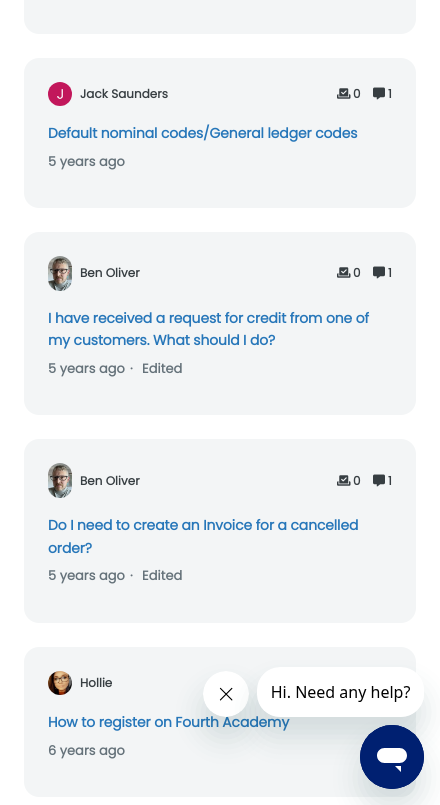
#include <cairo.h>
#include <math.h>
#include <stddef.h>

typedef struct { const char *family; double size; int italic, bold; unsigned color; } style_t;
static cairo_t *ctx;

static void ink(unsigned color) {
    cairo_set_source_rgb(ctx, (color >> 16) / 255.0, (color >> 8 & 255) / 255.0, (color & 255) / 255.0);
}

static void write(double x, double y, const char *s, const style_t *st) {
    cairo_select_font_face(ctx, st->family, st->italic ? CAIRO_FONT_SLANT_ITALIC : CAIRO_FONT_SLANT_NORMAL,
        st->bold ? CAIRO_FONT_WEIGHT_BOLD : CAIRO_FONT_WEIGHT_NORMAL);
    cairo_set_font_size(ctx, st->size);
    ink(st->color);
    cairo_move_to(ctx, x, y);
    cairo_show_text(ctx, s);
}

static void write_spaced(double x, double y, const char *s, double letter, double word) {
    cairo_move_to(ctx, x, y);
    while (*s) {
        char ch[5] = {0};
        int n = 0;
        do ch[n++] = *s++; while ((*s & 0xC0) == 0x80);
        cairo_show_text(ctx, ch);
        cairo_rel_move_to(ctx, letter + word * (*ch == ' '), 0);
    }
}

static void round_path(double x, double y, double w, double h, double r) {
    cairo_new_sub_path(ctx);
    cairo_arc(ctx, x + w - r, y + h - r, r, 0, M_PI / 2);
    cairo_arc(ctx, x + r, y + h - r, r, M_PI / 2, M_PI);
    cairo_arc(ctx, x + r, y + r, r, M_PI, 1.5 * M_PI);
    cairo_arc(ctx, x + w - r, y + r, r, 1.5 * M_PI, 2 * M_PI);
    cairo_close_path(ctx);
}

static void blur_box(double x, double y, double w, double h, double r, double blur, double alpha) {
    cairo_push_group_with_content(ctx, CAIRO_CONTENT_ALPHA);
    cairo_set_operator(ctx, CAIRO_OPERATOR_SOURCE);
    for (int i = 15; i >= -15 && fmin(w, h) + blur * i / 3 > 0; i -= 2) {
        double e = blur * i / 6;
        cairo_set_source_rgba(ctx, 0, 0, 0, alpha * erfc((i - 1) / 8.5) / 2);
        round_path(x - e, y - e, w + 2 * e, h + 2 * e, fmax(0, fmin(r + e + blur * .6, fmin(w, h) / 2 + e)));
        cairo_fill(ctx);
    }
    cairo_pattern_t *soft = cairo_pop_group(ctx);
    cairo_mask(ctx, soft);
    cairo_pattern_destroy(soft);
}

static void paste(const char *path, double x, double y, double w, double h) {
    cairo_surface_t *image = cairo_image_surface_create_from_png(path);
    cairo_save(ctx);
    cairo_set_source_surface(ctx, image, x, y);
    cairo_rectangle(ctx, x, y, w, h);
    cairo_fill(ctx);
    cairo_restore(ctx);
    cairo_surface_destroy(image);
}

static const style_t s1 = {"Poppins", 12, 0, 1, 0x373e42};
static const style_t s2 = {"Poppins", 13, 0, 1, 0x65727a};

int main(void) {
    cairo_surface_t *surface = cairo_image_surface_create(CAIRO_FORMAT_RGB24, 440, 805);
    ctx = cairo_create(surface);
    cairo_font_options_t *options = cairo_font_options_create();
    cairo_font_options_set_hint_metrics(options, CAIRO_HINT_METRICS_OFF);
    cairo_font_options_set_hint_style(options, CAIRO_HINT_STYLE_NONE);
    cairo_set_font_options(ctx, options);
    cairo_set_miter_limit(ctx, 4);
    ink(0xffffff);
    cairo_paint(ctx);
    ink(0xf3f5f6);
    round_path(24, -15, 392, 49, 15);
    cairo_fill(ctx);
    round_path(24, 58, 392, 150, 15);
    cairo_fill(ctx);
    paste("pic1.png", 48, 82, 24, 24);
    write(80, 98, "Jack Saunders", &s1);
    paste("pic2.png", 337, 88, 14, 11);
    write(353, 98, "0", &s1);
    paste("pic3.png", 373, 87, 12, 13);
    write(388, 98, "1", &s1);
    cairo_set_font_size(ctx, 14);
    ink(0x2676b9);
    write_spaced(48, 138, "Default nominal codes/General ledger codes", -0.15, 0);
    write(48, 166, "5 years ago", &s2);
    ink(0xf3f5f6);
    round_path(24, 232, 392, 183, 15);
    cairo_fill(ctx);
    paste("pic4.png", 48, 256, 24, 35);
    write(80, 277, "Ben Oliver", &s1);
    paste("pic2.png", 337, 267, 14, 11);
    write(353, 277, "0", &s1);
    paste("pic3.png", 373, 266, 12, 13);
    write(388, 277, "1", &s1);
    cairo_set_font_size(ctx, 14);
    ink(0x2676b9);
    write_spaced(48, 323, "I have received a request for credit from one of", -0.15, 0);
    write_spaced(48, 345, "my customers. What should I do?", -0.15, 0);
    write(48, 373, "5 years ago", &s2);
    write(130, 373, "·", &s2);
    write(142, 373, "Edited", &s2);
    ink(0xf3f5f6);
    round_path(24, 439, 392, 184, 15);
    cairo_fill(ctx);
    paste("pic4.png", 48, 463, 24, 35);
    write(80, 485, "Ben Oliver", &s1);
    paste("pic2.png", 337, 475, 14, 11);
    write(353, 485, "0", &s1);
    paste("pic3.png", 373, 474, 12, 13);
    write(388, 485, "1", &s1);
    cairo_set_font_size(ctx, 14);
    ink(0x2676b9);
    write_spaced(48, 530, "Do I need to create an Invoice for a cancelled", -0.15, 0);
    write_spaced(48, 553, "order?", -0.15, 0);
    write(48, 580, "5 years ago", &s2);
    write(130, 580, "·", &s2);
    write(142, 580, "Edited", &s2);
    ink(0xf3f5f6);
    round_path(24, 647, 392, 150, 15);
    cairo_fill(ctx);
    paste("pic5.png", 48, 671, 24, 24);
    write(80, 687, "Hollie", &s1);
    cairo_set_font_size(ctx, 14);
    ink(0x2676b9);
    write_spaced(48, 727, "How to register on Fourth Academy", -0.15, 0);
    write(48, 755, "6 years ago", &s2);
    ink(0x17494d);
    blur_box(203, 691, 46, 46, 23, 15, 0.15);
    paste("pic7.png", 203, 671, 46, 46);
    cairo_save(ctx);
    cairo_set_fill_rule(ctx, CAIRO_FILL_RULE_EVEN_ODD);
    cairo_new_path(ctx);
    cairo_move_to(ctx, 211, 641);
    cairo_line_to(ctx, 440, 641);
    cairo_line_to(ctx, 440, 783);
    cairo_line_to(ctx, 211, 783);
    cairo_close_path(ctx);
    cairo_move_to(ctx, 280, 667);
    cairo_line_to(ctx, 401, 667);
    cairo_curve_to(ctx, 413.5, 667, 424, 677.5, 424, 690);
    cairo_line_to(ctx, 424, 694);
    cairo_curve_to(ctx, 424, 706.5, 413.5, 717, 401, 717);
    cairo_line_to(ctx, 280, 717);
    cairo_curve_to(ctx, 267.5, 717, 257, 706.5, 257, 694);
    cairo_line_to(ctx, 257, 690);
    cairo_curve_to(ctx, 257, 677.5, 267.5, 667, 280, 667);
    cairo_close_path(ctx);
    cairo_clip(ctx);
    blur_box(257, 687, 167, 50, 23, 15, 0.15);
    cairo_restore(ctx);
    paste("pic6.png", 257, 667, 159, 50);
    blur_box(360, 745, 64, 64, 32, 15, 0.15);
    paste("pic8.png", 360, 725, 64, 64);
    cairo_surface_write_to_png(surface, "screenshot.png");
    cairo_font_options_destroy(options);
    cairo_destroy(ctx);
    cairo_surface_destroy(surface);
    return 0;
}
